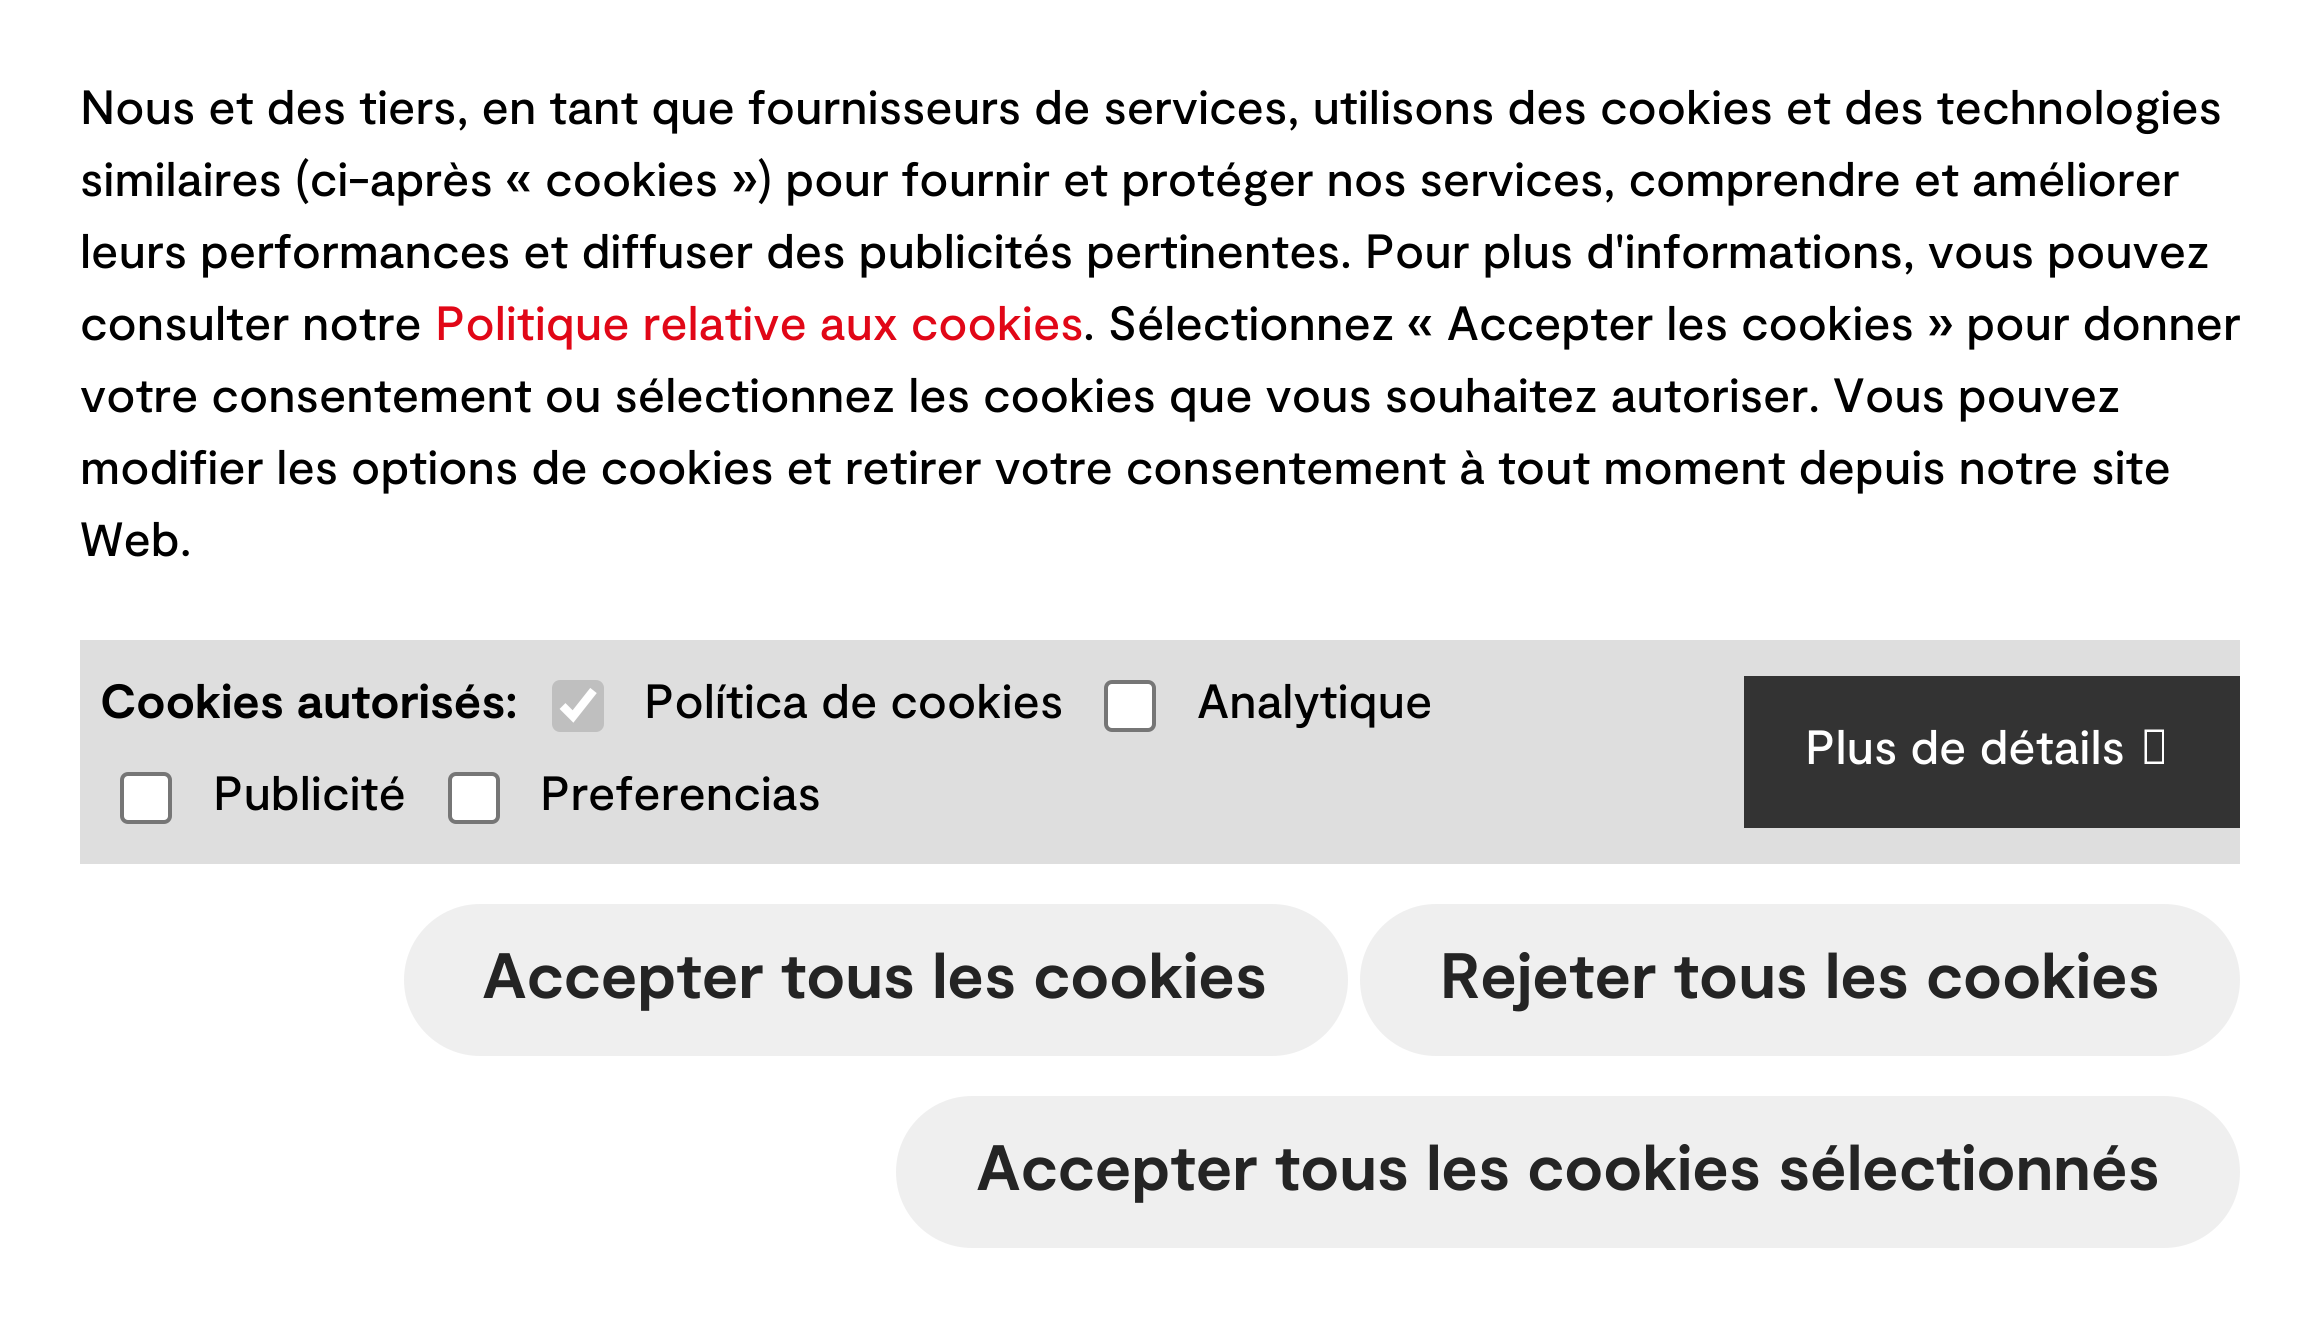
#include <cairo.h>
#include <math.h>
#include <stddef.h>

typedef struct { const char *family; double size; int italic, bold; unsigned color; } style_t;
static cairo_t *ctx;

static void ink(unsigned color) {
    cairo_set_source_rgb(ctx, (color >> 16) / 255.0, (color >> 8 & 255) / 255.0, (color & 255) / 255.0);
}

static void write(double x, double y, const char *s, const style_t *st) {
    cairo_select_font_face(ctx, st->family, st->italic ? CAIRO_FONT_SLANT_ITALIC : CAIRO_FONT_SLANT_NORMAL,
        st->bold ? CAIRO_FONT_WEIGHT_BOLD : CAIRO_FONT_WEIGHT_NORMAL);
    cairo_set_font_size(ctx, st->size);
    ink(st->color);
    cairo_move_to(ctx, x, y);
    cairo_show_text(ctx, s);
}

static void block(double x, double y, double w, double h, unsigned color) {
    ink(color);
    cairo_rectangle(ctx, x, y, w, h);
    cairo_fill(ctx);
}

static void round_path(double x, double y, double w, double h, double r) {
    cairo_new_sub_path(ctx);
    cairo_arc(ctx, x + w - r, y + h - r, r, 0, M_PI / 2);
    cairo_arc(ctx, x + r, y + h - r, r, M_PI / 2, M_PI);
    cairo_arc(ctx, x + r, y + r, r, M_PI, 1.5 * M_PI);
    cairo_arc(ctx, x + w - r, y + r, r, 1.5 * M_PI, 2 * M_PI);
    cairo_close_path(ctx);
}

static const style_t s1 = {"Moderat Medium", 48, 0, 0, 0x000000};
static const style_t s2 = {"Moderat Medium", 48, 0, 0, 0xe10717};
static const style_t s3 = {"Moderat", 48, 0, 1, 0x000000};
static const style_t s4 = {"Moderat Medium", 48, 0, 0, 0xffffff};
static const style_t s5 = {"Moderat", 64, 0, 1, 0x242424};

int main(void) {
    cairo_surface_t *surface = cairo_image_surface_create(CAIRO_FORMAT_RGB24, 2320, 1327);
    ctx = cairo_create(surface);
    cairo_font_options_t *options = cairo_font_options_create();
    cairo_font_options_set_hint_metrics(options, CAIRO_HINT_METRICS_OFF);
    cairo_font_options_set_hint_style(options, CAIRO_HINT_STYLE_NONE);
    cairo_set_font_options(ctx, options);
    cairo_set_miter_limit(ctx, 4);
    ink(0xffffff);
    cairo_paint(ctx);
    write(80, 124, "Nous et des tiers, en tant que fournisseurs de services, utilisons des cookies et des technologies", &s1);
    write(80, 196, "similaires (ci-après « cookies ») pour fournir et protéger nos services, comprendre et améliorer", &s1);
    write(80, 268, "leurs performances et diffuser des publicités pertinentes. Pour plus d'informations, vous pouvez", &s1);
    write(80, 340, "consulter notre", &s1);
    write(435, 340, "Politique relative aux cookies", &s2);
    write(1083, 340, ". Sélectionnez « Accepter les cookies » pour donner", &s1);
    write(80, 412, "votre consentement ou sélectionnez les cookies que vous souhaitez autoriser. Vous pouvez", &s1);
    write(80, 484, "modifier les options de cookies et retirer votre consentement à tout moment depuis notre site", &s1);
    write(80, 556, "Web.", &s1);
    block(80, 640, 2160, 224, 0xdedede);
    write(100, 718, "Cookies autorisés:", &s3);
    ink(0xbfbfbf);
    round_path(552, 680, 52, 52, 8);
    cairo_fill(ctx);
    cairo_new_path(ctx);
    cairo_move_to(ctx, 562.5, 706);
    cairo_line_to(ctx, 573, 716.5);
    cairo_line_to(ctx, 593.5, 690.5);
    ink(0xffffff);
    cairo_set_line_width(ctx, 8.3);
    cairo_stroke(ctx);
    write(644, 718, "Política de cookies", &s1);
    ink(0xffffff);
    round_path(1106, 682, 48, 48, 6);
    cairo_fill_preserve(ctx);
    ink(0x767676);
    cairo_set_line_width(ctx, 4);
    cairo_stroke(ctx);
    write(1197, 718, "Analytique", &s1);
    ink(0xffffff);
    round_path(122, 774, 48, 48, 6);
    cairo_fill_preserve(ctx);
    ink(0x767676);
    cairo_stroke(ctx);
    write(213, 810, "Publicité", &s1);
    ink(0xffffff);
    round_path(450, 774, 48, 48, 6);
    cairo_fill_preserve(ctx);
    ink(0x767676);
    cairo_stroke(ctx);
    write(540, 810, "Preferencias", &s1);
    block(1744, 676, 496, 152, 0x333333);
    write(1805, 764, "Plus de détails", &s4);
    cairo_new_path(ctx);
    cairo_move_to(ctx, 2144.5, 764);
    cairo_line_to(ctx, 2144.5, 729.5);
    cairo_line_to(ctx, 2164, 729.5);
    cairo_line_to(ctx, 2164, 764);
    cairo_close_path(ctx);
    cairo_move_to(ctx, 2147, 761.5);
    cairo_line_to(ctx, 2162, 761.5);
    cairo_line_to(ctx, 2162, 732);
    cairo_line_to(ctx, 2147, 732);
    cairo_close_path(ctx);
    cairo_fill(ctx);
    ink(0xefefef);
    round_path(404, 904, 944, 152, 76);
    cairo_fill(ctx);
    write(482, 998, "Accepter tous les cookies", &s5);
    ink(0xefefef);
    round_path(1360, 904, 880, 152, 76);
    cairo_fill(ctx);
    write(1440, 998, "Rejeter tous les cookies", &s5);
    ink(0xefefef);
    round_path(896, 1096, 1344, 152, 76);
    cairo_fill(ctx);
    write(976, 1190, "Accepter tous les cookies sélectionnés", &s5);
    cairo_surface_write_to_png(surface, "screenshot.png");
    cairo_font_options_destroy(options);
    cairo_destroy(ctx);
    cairo_surface_destroy(surface);
    return 0;
}
